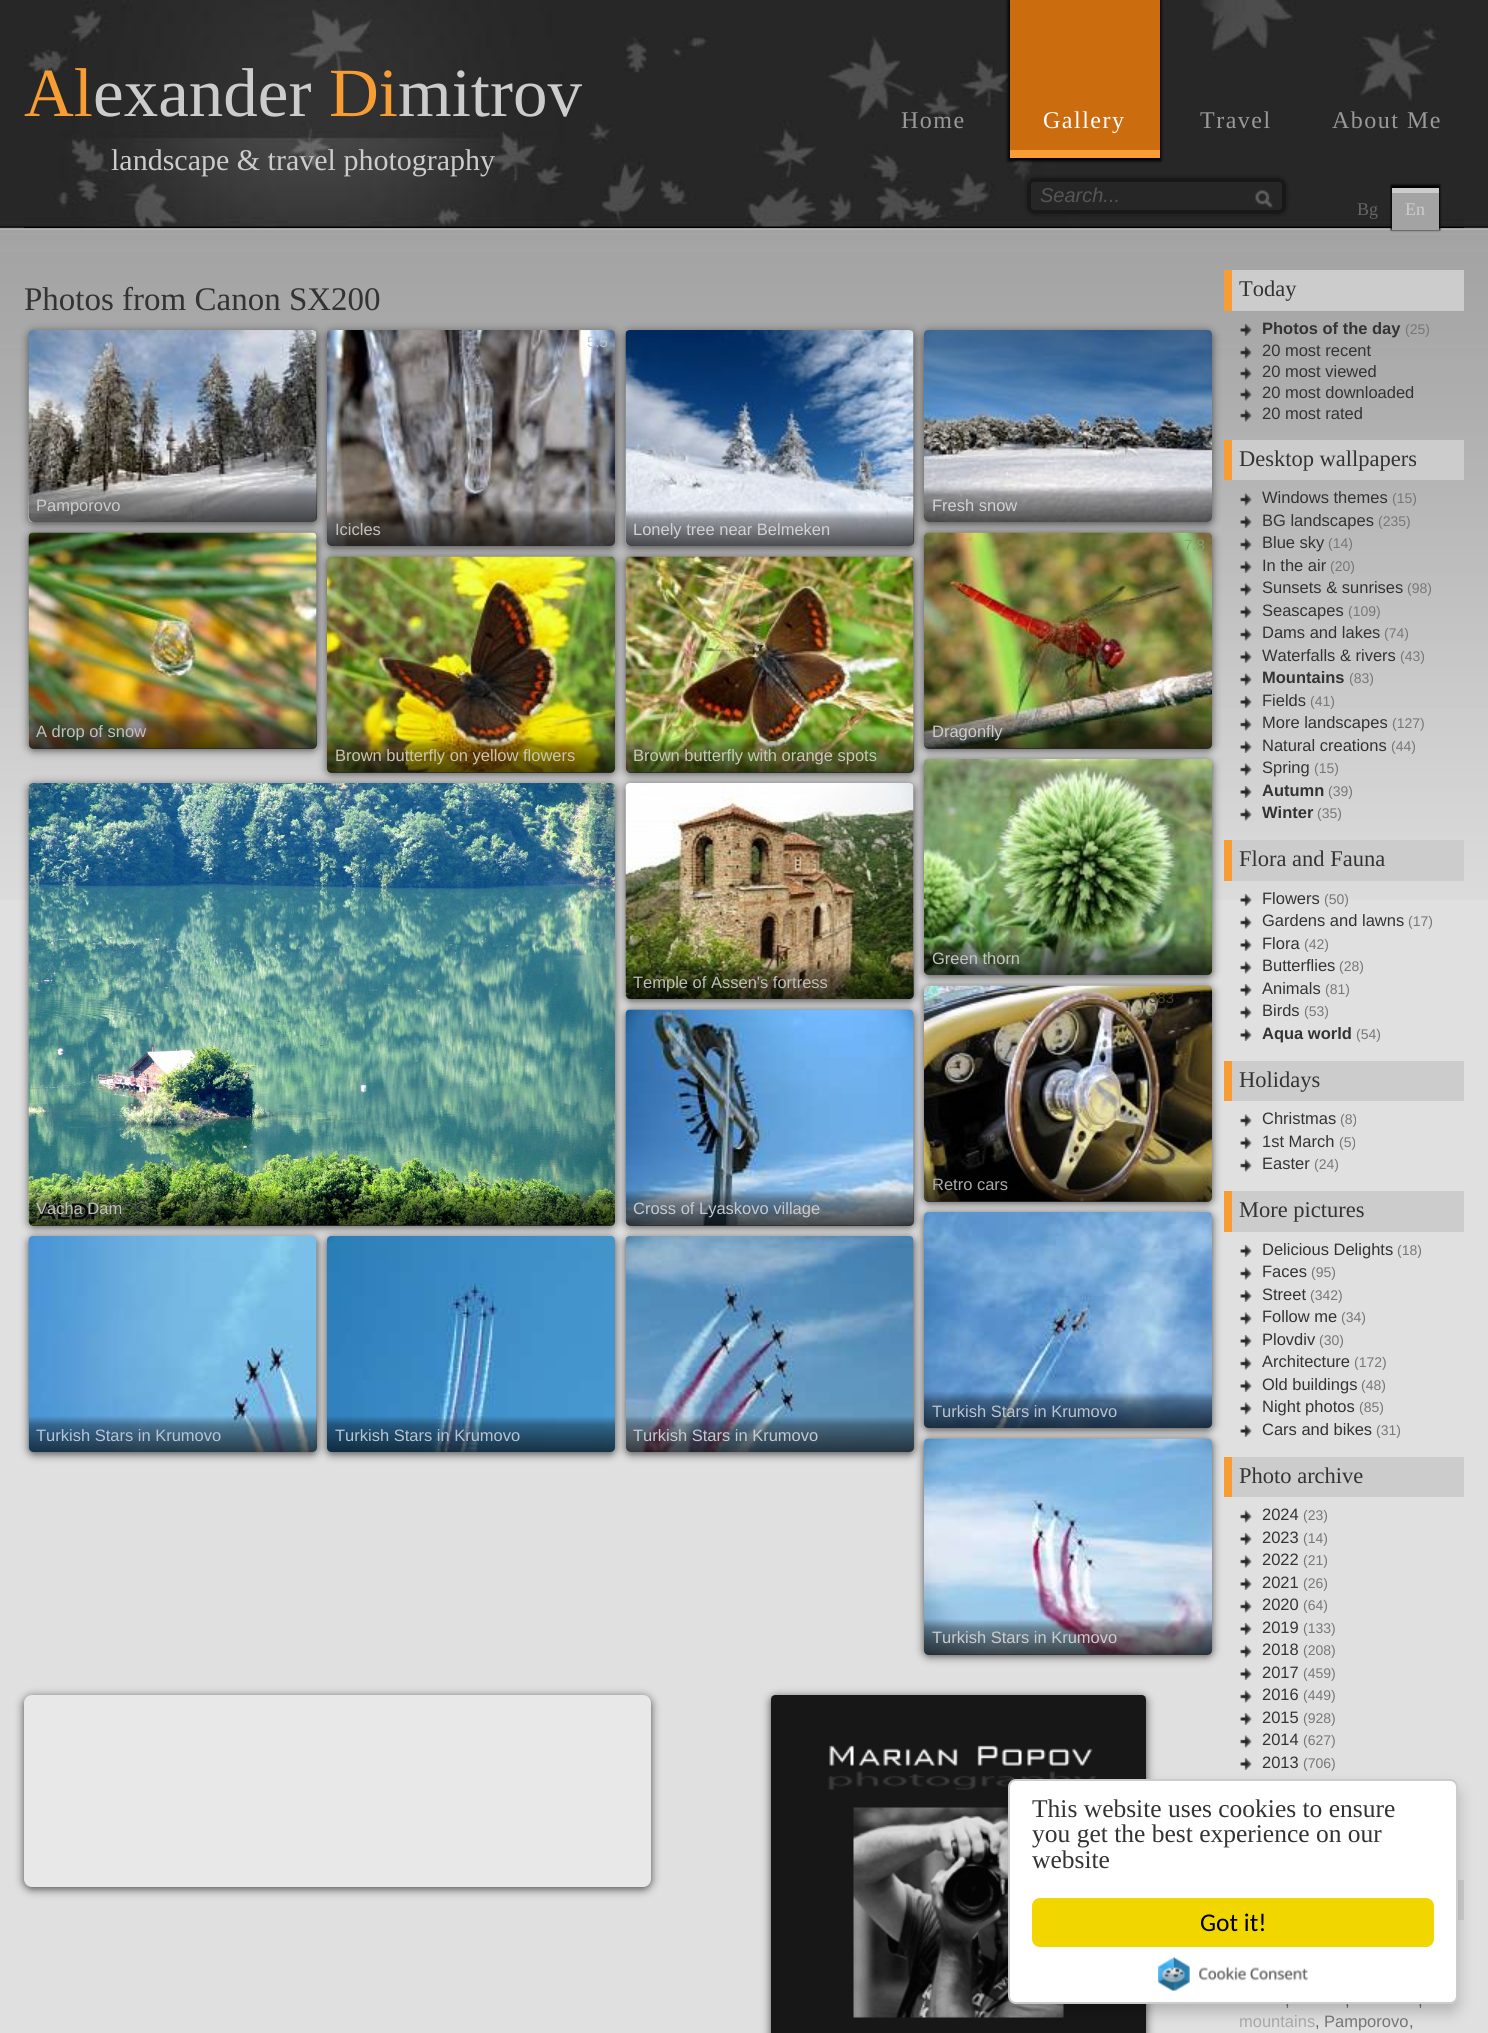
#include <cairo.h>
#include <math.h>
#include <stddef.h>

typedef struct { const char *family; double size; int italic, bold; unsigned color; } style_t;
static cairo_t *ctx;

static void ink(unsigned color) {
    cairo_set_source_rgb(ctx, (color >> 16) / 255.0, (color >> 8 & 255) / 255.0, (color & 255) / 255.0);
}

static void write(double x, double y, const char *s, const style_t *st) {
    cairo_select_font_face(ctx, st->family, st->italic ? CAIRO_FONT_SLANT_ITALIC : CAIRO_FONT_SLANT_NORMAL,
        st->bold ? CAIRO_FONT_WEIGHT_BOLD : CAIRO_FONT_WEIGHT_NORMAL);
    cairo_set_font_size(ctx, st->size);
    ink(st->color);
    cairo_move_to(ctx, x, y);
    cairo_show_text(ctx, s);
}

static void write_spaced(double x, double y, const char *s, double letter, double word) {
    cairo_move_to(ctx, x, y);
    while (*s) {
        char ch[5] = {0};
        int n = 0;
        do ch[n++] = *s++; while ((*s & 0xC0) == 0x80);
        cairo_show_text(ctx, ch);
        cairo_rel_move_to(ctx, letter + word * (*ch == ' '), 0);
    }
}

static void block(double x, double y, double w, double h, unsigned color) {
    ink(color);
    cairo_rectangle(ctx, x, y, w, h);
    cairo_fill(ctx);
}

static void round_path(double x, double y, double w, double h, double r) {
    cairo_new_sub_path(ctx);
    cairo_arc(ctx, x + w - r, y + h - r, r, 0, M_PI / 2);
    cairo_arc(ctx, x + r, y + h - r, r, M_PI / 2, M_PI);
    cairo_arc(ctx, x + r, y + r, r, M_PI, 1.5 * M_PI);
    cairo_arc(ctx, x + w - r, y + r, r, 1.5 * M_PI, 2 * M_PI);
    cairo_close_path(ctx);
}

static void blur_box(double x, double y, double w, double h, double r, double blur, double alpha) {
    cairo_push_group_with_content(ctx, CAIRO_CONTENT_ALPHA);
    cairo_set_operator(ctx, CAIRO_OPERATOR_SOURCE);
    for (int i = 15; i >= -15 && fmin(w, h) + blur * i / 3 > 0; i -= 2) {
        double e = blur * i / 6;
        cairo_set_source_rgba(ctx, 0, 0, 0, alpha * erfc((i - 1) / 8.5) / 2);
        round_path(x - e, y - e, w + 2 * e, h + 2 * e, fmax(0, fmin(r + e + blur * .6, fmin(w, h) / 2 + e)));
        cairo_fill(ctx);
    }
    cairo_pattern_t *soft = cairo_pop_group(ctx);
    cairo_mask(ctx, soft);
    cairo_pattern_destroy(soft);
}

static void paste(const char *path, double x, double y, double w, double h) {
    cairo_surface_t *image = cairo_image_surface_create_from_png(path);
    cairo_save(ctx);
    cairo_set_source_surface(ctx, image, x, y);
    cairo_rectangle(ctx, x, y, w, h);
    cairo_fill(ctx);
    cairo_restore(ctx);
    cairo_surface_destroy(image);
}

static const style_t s1 = {"Liberation Serif", 69, 0, 0, 0xf89d34};
static const style_t s2 = {"Liberation Serif", 69, 0, 0, 0xcccccc};
static const style_t s3 = {"Liberation Serif", 30, 0, 0, 0xcccccc};
static const style_t s4 = {"Liberation Sans", 20, 1, 0, 0x555555};
static const style_t s5 = {"Liberation Serif", 18, 0, 0, 0x656565};
static const style_t s6 = {"Liberation Serif", 18, 0, 0, 0xcccccc};
static const style_t s7 = {"Liberation Serif", 33, 0, 0, 0x333333};
static const style_t s8 = {"Liberation Sans", 15, 0, 0, 0x9a9ea0};
static const style_t s9 = {"Liberation Sans", 16.5, 0, 0, 0xcccccc};
static const style_t s10 = {"Liberation Sans", 15, 0, 0, 0xb8c5d6};
static const style_t s11 = {"Liberation Sans", 16.5, 0, 0, 0xc2c0be};
static const style_t s12 = {"Liberation Sans", 16.5, 0, 0, 0xd1d2d4};
static const style_t s13 = {"Liberation Sans", 15, 0, 0, 0x87a163};
static const style_t s14 = {"Liberation Sans", 16.5, 0, 0, 0xcbc5ae};
static const style_t s15 = {"Liberation Sans", 16.5, 0, 0, 0xc6c9b8};
static const style_t s16 = {"Liberation Sans", 15, 0, 0, 0x56859a};
static const style_t s17 = {"Liberation Sans", 16.5, 0, 0, 0xc1c6bf};
static const style_t s18 = {"Liberation Sans", 16.5, 0, 0, 0xbebeb5};
static const style_t s19 = {"Liberation Sans", 15, 0, 0, 0x494127};
static const style_t s20 = {"Liberation Sans", 16.5, 0, 0, 0xaaaaaa};
static const style_t s21 = {"Liberation Sans", 16.5, 0, 0, 0xc5cacf};
static const style_t s22 = {"Liberation Sans", 16.5, 0, 0, 0xbbc4ce};
static const style_t s23 = {"Liberation Sans", 16.5, 0, 0, 0xb8c5d6};
static const style_t s24 = {"Liberation Serif", 22.5, 0, 0, 0x333333};
static const style_t s25 = {"Liberation Sans", 16.5, 0, 1, 0x333333};
static const style_t s26 = {"Liberation Sans", 14, 0, 0, 0x777777};
static const style_t s27 = {"Liberation Sans", 16.5, 0, 0, 0x333333};
static const style_t s28 = {"Liberation Sans", 16.5, 0, 0, 0x656565};
static const style_t s29 = {"Liberation Sans", 16.5, 0, 0, 0x777777};
static const style_t s30 = {"Liberation Serif", 25.5, 0, 0, 0x333333};
static const style_t s31 = {"Carlito", 25.5, 0, 0, 0x000000};

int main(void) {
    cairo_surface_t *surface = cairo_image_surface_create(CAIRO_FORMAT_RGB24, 1488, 2033);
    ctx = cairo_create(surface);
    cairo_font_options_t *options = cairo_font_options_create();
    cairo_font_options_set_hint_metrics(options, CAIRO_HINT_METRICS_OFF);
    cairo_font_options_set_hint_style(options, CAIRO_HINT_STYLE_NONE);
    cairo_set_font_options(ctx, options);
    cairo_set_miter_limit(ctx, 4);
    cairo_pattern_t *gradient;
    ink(0xe0e0e0);
    cairo_paint(ctx);
    paste("pic1.png", 0, 0, 1488, 900);
    paste("pic2.png", 24, 0, 1440, 228);
    write(24, 116, "Al", &s1);
    write(93, 116, "exander", &s2);
    write(329, 116, "Di", &s1);
    write(398, 116, "mitrov", &s2);
    write(111, 170, "landscape & travel photography", &s3);
    cairo_set_font_size(ctx, 24);
    ink(0x999999);
    write_spaced(901, 128, "Home", 1.5, 0);
    ink(0x000000);
    blur_box(1008, 0, 153, 161, 0, 1.5, 1);
    block(1010, 0, 150, 150, 0xcb6d0f);
    block(1010, 150, 150, 8, 0xf89d34);
    ink(0xffffff);
    write_spaced(1043, 128, "Gallery", 1.5, 0);
    ink(0x999999);
    write_spaced(1200, 128, "Travel", 1.5, 0);
    write_spaced(1332, 128, "About Me", 1.5, 0);
    ink(0x000000);
    blur_box(1029, 180, 255, 32, 5, 3, 1);
    ink(0x262626);
    round_path(1030, 181, 253, 30, 4);
    cairo_fill_preserve(ctx);
    ink(0x181818);
    cairo_stroke(ctx);
    write(1040, 202, "Search...", &s4);
    paste("pic3.png", 1255, 190, 18, 18);
    write(1357, 215, "Bg", &s5);
    ink(0x000000);
    blur_box(1391, 185, 49, 45, 0, 1, 1);
    block(1392, 193, 47, 37, 0xa3a3a3);
    block(1392, 188, 47, 5, 0xcccccc);
    write(1405, 215, "En", &s6);
    write(24, 310, "Photos from Canon SX200", &s7);
    ink(0x4a4a4a);
    blur_box(29, 332, 288, 192, 5, 4.5, 1);
    paste("pic4.png", 28, 330, 289, 192);
    write(301, 347, "9", &s8);
    gradient = cairo_pattern_create_linear(173, 486, 173, 522);
    cairo_pattern_add_color_stop_rgba(gradient, 0, 0, 0, 0, 0);
    cairo_pattern_add_color_stop_rgba(gradient, 0.25, 0, 0, 0, 0.34);
    cairo_pattern_add_color_stop_rgba(gradient, 1, 0, 0, 0, 0.67);
    cairo_set_source(ctx, gradient);
    cairo_pattern_destroy(gradient);
    cairo_new_path(ctx);
    cairo_move_to(ctx, 29, 486);
    cairo_line_to(ctx, 317, 486);
    cairo_line_to(ctx, 317, 517);
    cairo_curve_to(ctx, 317, 520, 315, 522, 312, 522);
    cairo_line_to(ctx, 34, 522);
    cairo_curve_to(ctx, 31, 522, 29, 520, 29, 517);
    cairo_close_path(ctx);
    cairo_fill(ctx);
    write(36, 511, "Pamporovo", &s9);
    ink(0x4a4a4a);
    blur_box(327, 332, 288, 216, 5, 4.5, 1);
    paste("pic5.png", 327, 330, 288, 216);
    write(587, 347, "5.5", &s10);
    gradient = cairo_pattern_create_linear(471, 510, 471, 546);
    cairo_pattern_add_color_stop_rgba(gradient, 0, 0, 0, 0, 0);
    cairo_pattern_add_color_stop_rgba(gradient, 0.25, 0, 0, 0, 0.34);
    cairo_pattern_add_color_stop_rgba(gradient, 1, 0, 0, 0, 0.67);
    cairo_set_source(ctx, gradient);
    cairo_pattern_destroy(gradient);
    cairo_new_path(ctx);
    cairo_move_to(ctx, 327, 510);
    cairo_line_to(ctx, 615, 510);
    cairo_line_to(ctx, 615, 541);
    cairo_curve_to(ctx, 615, 544, 613, 546, 610, 546);
    cairo_line_to(ctx, 332, 546);
    cairo_curve_to(ctx, 329, 546, 327, 544, 327, 541);
    cairo_close_path(ctx);
    cairo_fill(ctx);
    write(335, 535, "Icicles", &s11);
    ink(0x4a4a4a);
    blur_box(626, 332, 288, 216, 5, 4.5, 1);
    paste("pic7.png", 625, 330, 289, 216);
    gradient = cairo_pattern_create_linear(770, 510, 770, 546);
    cairo_pattern_add_color_stop_rgba(gradient, 0, 0, 0, 0, 0);
    cairo_pattern_add_color_stop_rgba(gradient, 0.25, 0, 0, 0, 0.34);
    cairo_pattern_add_color_stop_rgba(gradient, 1, 0, 0, 0, 0.67);
    cairo_set_source(ctx, gradient);
    cairo_pattern_destroy(gradient);
    cairo_new_path(ctx);
    cairo_move_to(ctx, 626, 510);
    cairo_line_to(ctx, 914, 510);
    cairo_line_to(ctx, 914, 541);
    cairo_curve_to(ctx, 914, 544, 912, 546, 909, 546);
    cairo_line_to(ctx, 631, 546);
    cairo_curve_to(ctx, 628, 546, 626, 544, 626, 541);
    cairo_close_path(ctx);
    cairo_fill(ctx);
    block(1224, 440, 8, 40, 0xf89d34);
    ink(0x4a4a4a);
    blur_box(924, 332, 288, 192, 5, 4.5, 1);
    paste("pic6.png", 924, 330, 288, 192);
    gradient = cairo_pattern_create_linear(1068, 486, 1068, 522);
    cairo_pattern_add_color_stop_rgba(gradient, 0, 0, 0, 0, 0);
    cairo_pattern_add_color_stop_rgba(gradient, 0.25, 0, 0, 0, 0.34);
    cairo_pattern_add_color_stop_rgba(gradient, 1, 0, 0, 0, 0.67);
    cairo_set_source(ctx, gradient);
    cairo_pattern_destroy(gradient);
    cairo_new_path(ctx);
    cairo_move_to(ctx, 924, 486);
    cairo_line_to(ctx, 1212, 486);
    cairo_line_to(ctx, 1212, 517);
    cairo_curve_to(ctx, 1212, 520, 1210, 522, 1207, 522);
    cairo_line_to(ctx, 929, 522);
    cairo_curve_to(ctx, 926, 522, 924, 520, 924, 517);
    cairo_close_path(ctx);
    cairo_fill(ctx);
    write(932, 511, "Fresh snow", &s12);
    write(633, 535, "Lonely tree near Belmeken", &s12);
    ink(0x4a4a4a);
    blur_box(29, 534, 288, 216, 5, 4.5, 1);
    paste("pic8.png", 28, 532, 289, 217);
    gradient = cairo_pattern_create_linear(173, 713, 173, 749);
    cairo_pattern_add_color_stop_rgba(gradient, 0, 0, 0, 0, 0);
    cairo_pattern_add_color_stop_rgba(gradient, 0.25, 0, 0, 0, 0.34);
    cairo_pattern_add_color_stop_rgba(gradient, 1, 0, 0, 0, 0.67);
    cairo_set_source(ctx, gradient);
    cairo_pattern_destroy(gradient);
    cairo_new_path(ctx);
    cairo_move_to(ctx, 29, 713);
    cairo_line_to(ctx, 317, 713);
    cairo_line_to(ctx, 317, 744);
    cairo_curve_to(ctx, 317, 747, 315, 749, 312, 749);
    cairo_line_to(ctx, 34, 749);
    cairo_curve_to(ctx, 31, 749, 29, 747, 29, 744);
    cairo_close_path(ctx);
    cairo_fill(ctx);
    write(36, 737, "A drop of snow", &s11);
    ink(0x4a4a4a);
    blur_box(924, 534, 288, 216, 5, 4.5, 1);
    paste("pic9.png", 924, 532, 288, 217);
    write(1184, 550, "7.8", &s13);
    gradient = cairo_pattern_create_linear(1068, 713, 1068, 749);
    cairo_pattern_add_color_stop_rgba(gradient, 0, 0, 0, 0, 0);
    cairo_pattern_add_color_stop_rgba(gradient, 0.25, 0, 0, 0, 0.34);
    cairo_pattern_add_color_stop_rgba(gradient, 1, 0, 0, 0, 0.67);
    cairo_set_source(ctx, gradient);
    cairo_pattern_destroy(gradient);
    cairo_new_path(ctx);
    cairo_move_to(ctx, 924, 713);
    cairo_line_to(ctx, 1212, 713);
    cairo_line_to(ctx, 1212, 744);
    cairo_curve_to(ctx, 1212, 747, 1210, 749, 1207, 749);
    cairo_line_to(ctx, 929, 749);
    cairo_curve_to(ctx, 926, 749, 924, 747, 924, 744);
    cairo_close_path(ctx);
    cairo_fill(ctx);
    write(932, 737, "Dragonfly", &s9);
    ink(0x4a4a4a);
    blur_box(327, 558, 288, 216, 5, 4.5, 1);
    paste("pic10.png", 327, 556, 288, 217);
    gradient = cairo_pattern_create_linear(471, 737, 471, 773);
    cairo_pattern_add_color_stop_rgba(gradient, 0, 0, 0, 0, 0);
    cairo_pattern_add_color_stop_rgba(gradient, 0.25, 0, 0, 0, 0.34);
    cairo_pattern_add_color_stop_rgba(gradient, 1, 0, 0, 0, 0.67);
    cairo_set_source(ctx, gradient);
    cairo_pattern_destroy(gradient);
    cairo_new_path(ctx);
    cairo_move_to(ctx, 327, 737);
    cairo_line_to(ctx, 615, 737);
    cairo_line_to(ctx, 615, 768);
    cairo_curve_to(ctx, 615, 771, 613, 773, 610, 773);
    cairo_line_to(ctx, 332, 773);
    cairo_curve_to(ctx, 329, 773, 327, 771, 327, 768);
    cairo_close_path(ctx);
    cairo_fill(ctx);
    write(335, 761, "Brown butterfly on yellow flowers", &s14);
    ink(0x4a4a4a);
    blur_box(626, 558, 288, 216, 5, 4.5, 1);
    paste("pic11.png", 625, 556, 289, 217);
    gradient = cairo_pattern_create_linear(770, 737, 770, 773);
    cairo_pattern_add_color_stop_rgba(gradient, 0, 0, 0, 0, 0);
    cairo_pattern_add_color_stop_rgba(gradient, 0.25, 0, 0, 0, 0.34);
    cairo_pattern_add_color_stop_rgba(gradient, 1, 0, 0, 0, 0.67);
    cairo_set_source(ctx, gradient);
    cairo_pattern_destroy(gradient);
    cairo_new_path(ctx);
    cairo_move_to(ctx, 626, 737);
    cairo_line_to(ctx, 914, 737);
    cairo_line_to(ctx, 914, 768);
    cairo_curve_to(ctx, 914, 771, 912, 773, 909, 773);
    cairo_line_to(ctx, 631, 773);
    cairo_curve_to(ctx, 628, 773, 626, 771, 626, 768);
    cairo_close_path(ctx);
    cairo_fill(ctx);
    write(633, 761, "Brown butterfly with orange spots", &s15);
    ink(0x4a4a4a);
    blur_box(29, 785, 586, 442, 5, 4.5, 1);
    paste("pic12.png", 28, 783, 587, 443);
    write(465, 800, "3520", &s16);
    gradient = cairo_pattern_create_linear(322, 1190, 322, 1226);
    cairo_pattern_add_color_stop_rgba(gradient, 0, 0, 0, 0, 0);
    cairo_pattern_add_color_stop_rgba(gradient, 0.25, 0, 0, 0, 0.34);
    cairo_pattern_add_color_stop_rgba(gradient, 1, 0, 0, 0, 0.67);
    cairo_set_source(ctx, gradient);
    cairo_pattern_destroy(gradient);
    cairo_new_path(ctx);
    cairo_move_to(ctx, 29, 1190);
    cairo_line_to(ctx, 615, 1190);
    cairo_line_to(ctx, 615, 1221);
    cairo_curve_to(ctx, 615, 1224, 613, 1226, 610, 1226);
    cairo_line_to(ctx, 34, 1226);
    cairo_curve_to(ctx, 31, 1226, 29, 1224, 29, 1221);
    cairo_close_path(ctx);
    cairo_fill(ctx);
    write(36, 1214, "Vacha Dam", &s11);
    block(1224, 840, 8, 41, 0xf89d34);
    ink(0x4a4a4a);
    blur_box(924, 761, 288, 216, 5, 4.5, 1);
    paste("pic13.png", 924, 759, 288, 216);
    gradient = cairo_pattern_create_linear(1068, 939, 1068, 975);
    cairo_pattern_add_color_stop_rgba(gradient, 0, 0, 0, 0, 0);
    cairo_pattern_add_color_stop_rgba(gradient, 0.25, 0, 0, 0, 0.34);
    cairo_pattern_add_color_stop_rgba(gradient, 1, 0, 0, 0, 0.67);
    cairo_set_source(ctx, gradient);
    cairo_pattern_destroy(gradient);
    cairo_new_path(ctx);
    cairo_move_to(ctx, 924, 939);
    cairo_line_to(ctx, 1212, 939);
    cairo_line_to(ctx, 1212, 970);
    cairo_curve_to(ctx, 1212, 973, 1210, 975, 1207, 975);
    cairo_line_to(ctx, 929, 975);
    cairo_curve_to(ctx, 926, 975, 924, 973, 924, 970);
    cairo_close_path(ctx);
    cairo_fill(ctx);
    write(932, 964, "Green thorn", &s17);
    ink(0x4a4a4a);
    blur_box(626, 785, 288, 216, 5, 4.5, 1);
    paste("pic14.png", 625, 783, 289, 216);
    gradient = cairo_pattern_create_linear(770, 963, 770, 999);
    cairo_pattern_add_color_stop_rgba(gradient, 0, 0, 0, 0, 0);
    cairo_pattern_add_color_stop_rgba(gradient, 0.25, 0, 0, 0, 0.34);
    cairo_pattern_add_color_stop_rgba(gradient, 1, 0, 0, 0, 0.67);
    cairo_set_source(ctx, gradient);
    cairo_pattern_destroy(gradient);
    cairo_new_path(ctx);
    cairo_move_to(ctx, 626, 963);
    cairo_line_to(ctx, 914, 963);
    cairo_line_to(ctx, 914, 994);
    cairo_curve_to(ctx, 914, 997, 912, 999, 909, 999);
    cairo_line_to(ctx, 631, 999);
    cairo_curve_to(ctx, 628, 999, 626, 997, 626, 994);
    cairo_close_path(ctx);
    cairo_fill(ctx);
    write(633, 988, "Temple of Assen's fortress", &s18);
    block(1224, 1061, 8, 40, 0xf89d34);
    block(1224, 1191, 8, 41, 0xf89d34);
    ink(0x4a4a4a);
    blur_box(924, 987, 288, 216, 5, 4.5, 1);
    paste("pic15.png", 924, 985, 288, 217);
    write(1149, 1003, "383", &s19);
    gradient = cairo_pattern_create_linear(1068, 1166, 1068, 1202);
    cairo_pattern_add_color_stop_rgba(gradient, 0, 0, 0, 0, 0);
    cairo_pattern_add_color_stop_rgba(gradient, 0.25, 0, 0, 0, 0.34);
    cairo_pattern_add_color_stop_rgba(gradient, 1, 0, 0, 0, 0.67);
    cairo_set_source(ctx, gradient);
    cairo_pattern_destroy(gradient);
    cairo_new_path(ctx);
    cairo_move_to(ctx, 924, 1166);
    cairo_line_to(ctx, 1212, 1166);
    cairo_line_to(ctx, 1212, 1197);
    cairo_curve_to(ctx, 1212, 1200, 1210, 1202, 1207, 1202);
    cairo_line_to(ctx, 929, 1202);
    cairo_curve_to(ctx, 926, 1202, 924, 1200, 924, 1197);
    cairo_close_path(ctx);
    cairo_fill(ctx);
    write(932, 1190, "Retro cars", &s20);
    ink(0x4a4a4a);
    blur_box(626, 1011, 288, 216, 5, 4.5, 1);
    paste("pic16.png", 625, 1009, 289, 217);
    gradient = cairo_pattern_create_linear(770, 1190, 770, 1226);
    cairo_pattern_add_color_stop_rgba(gradient, 0, 0, 0, 0, 0);
    cairo_pattern_add_color_stop_rgba(gradient, 0.25, 0, 0, 0, 0.34);
    cairo_pattern_add_color_stop_rgba(gradient, 1, 0, 0, 0, 0.67);
    cairo_set_source(ctx, gradient);
    cairo_pattern_destroy(gradient);
    cairo_new_path(ctx);
    cairo_move_to(ctx, 626, 1190);
    cairo_line_to(ctx, 914, 1190);
    cairo_line_to(ctx, 914, 1221);
    cairo_curve_to(ctx, 914, 1224, 912, 1226, 909, 1226);
    cairo_line_to(ctx, 631, 1226);
    cairo_curve_to(ctx, 628, 1226, 626, 1224, 626, 1221);
    cairo_close_path(ctx);
    cairo_fill(ctx);
    write(633, 1214, "Cross of Lyaskovo village", &s21);
    ink(0x4a4a4a);
    blur_box(924, 1214, 288, 216, 5, 4.5, 1);
    paste("pic17.png", 924, 1212, 288, 216);
    gradient = cairo_pattern_create_linear(1068, 1392, 1068, 1428);
    cairo_pattern_add_color_stop_rgba(gradient, 0, 0, 0, 0, 0);
    cairo_pattern_add_color_stop_rgba(gradient, 0.25, 0, 0, 0, 0.34);
    cairo_pattern_add_color_stop_rgba(gradient, 1, 0, 0, 0, 0.67);
    cairo_set_source(ctx, gradient);
    cairo_pattern_destroy(gradient);
    cairo_new_path(ctx);
    cairo_move_to(ctx, 924, 1392);
    cairo_line_to(ctx, 1212, 1392);
    cairo_line_to(ctx, 1212, 1423);
    cairo_curve_to(ctx, 1212, 1426, 1210, 1428, 1207, 1428);
    cairo_line_to(ctx, 929, 1428);
    cairo_curve_to(ctx, 926, 1428, 924, 1426, 924, 1423);
    cairo_close_path(ctx);
    cairo_fill(ctx);
    write(932, 1417, "Turkish Stars in Krumovo", &s22);
    ink(0x4a4a4a);
    blur_box(29, 1238, 288, 216, 5, 4.5, 1);
    paste("pic18.png", 28, 1236, 289, 216);
    gradient = cairo_pattern_create_linear(173, 1416, 173, 1452);
    cairo_pattern_add_color_stop_rgba(gradient, 0, 0, 0, 0, 0);
    cairo_pattern_add_color_stop_rgba(gradient, 0.25, 0, 0, 0, 0.34);
    cairo_pattern_add_color_stop_rgba(gradient, 1, 0, 0, 0, 0.67);
    cairo_set_source(ctx, gradient);
    cairo_pattern_destroy(gradient);
    cairo_new_path(ctx);
    cairo_move_to(ctx, 29, 1416);
    cairo_line_to(ctx, 317, 1416);
    cairo_line_to(ctx, 317, 1447);
    cairo_curve_to(ctx, 317, 1450, 315, 1452, 312, 1452);
    cairo_line_to(ctx, 34, 1452);
    cairo_curve_to(ctx, 31, 1452, 29, 1450, 29, 1447);
    cairo_close_path(ctx);
    cairo_fill(ctx);
    write(36, 1441, "Turkish Stars in Krumovo", &s23);
    ink(0x4a4a4a);
    blur_box(327, 1238, 288, 216, 5, 4.5, 1);
    paste("pic19.png", 327, 1236, 288, 216);
    gradient = cairo_pattern_create_linear(471, 1416, 471, 1452);
    cairo_pattern_add_color_stop_rgba(gradient, 0, 0, 0, 0, 0);
    cairo_pattern_add_color_stop_rgba(gradient, 0.25, 0, 0, 0, 0.34);
    cairo_pattern_add_color_stop_rgba(gradient, 1, 0, 0, 0, 0.67);
    cairo_set_source(ctx, gradient);
    cairo_pattern_destroy(gradient);
    cairo_new_path(ctx);
    cairo_move_to(ctx, 327, 1416);
    cairo_line_to(ctx, 615, 1416);
    cairo_line_to(ctx, 615, 1447);
    cairo_curve_to(ctx, 615, 1450, 613, 1452, 610, 1452);
    cairo_line_to(ctx, 332, 1452);
    cairo_curve_to(ctx, 329, 1452, 327, 1450, 327, 1447);
    cairo_close_path(ctx);
    cairo_fill(ctx);
    write(335, 1441, "Turkish Stars in Krumovo", &s22);
    ink(0x4a4a4a);
    blur_box(626, 1238, 288, 216, 5, 4.5, 1);
    paste("pic20.png", 625, 1236, 289, 216);
    gradient = cairo_pattern_create_linear(770, 1416, 770, 1452);
    cairo_pattern_add_color_stop_rgba(gradient, 0, 0, 0, 0, 0);
    cairo_pattern_add_color_stop_rgba(gradient, 0.25, 0, 0, 0, 0.34);
    cairo_pattern_add_color_stop_rgba(gradient, 1, 0, 0, 0, 0.67);
    cairo_set_source(ctx, gradient);
    cairo_pattern_destroy(gradient);
    cairo_new_path(ctx);
    cairo_move_to(ctx, 626, 1416);
    cairo_line_to(ctx, 914, 1416);
    cairo_line_to(ctx, 914, 1447);
    cairo_curve_to(ctx, 914, 1450, 912, 1452, 909, 1452);
    cairo_line_to(ctx, 631, 1452);
    cairo_curve_to(ctx, 628, 1452, 626, 1450, 626, 1447);
    cairo_close_path(ctx);
    cairo_fill(ctx);
    write(633, 1441, "Turkish Stars in Krumovo", &s21);
    block(1224, 1457, 8, 40, 0xf89d34);
    ink(0x4a4a4a);
    blur_box(924, 1440, 288, 216, 5, 4.5, 1);
    paste("pic21.png", 924, 1438, 288, 217);
    gradient = cairo_pattern_create_linear(1068, 1619, 1068, 1655);
    cairo_pattern_add_color_stop_rgba(gradient, 0, 0, 0, 0, 0);
    cairo_pattern_add_color_stop_rgba(gradient, 0.25, 0, 0, 0, 0.34);
    cairo_pattern_add_color_stop_rgba(gradient, 1, 0, 0, 0, 0.67);
    cairo_set_source(ctx, gradient);
    cairo_pattern_destroy(gradient);
    cairo_new_path(ctx);
    cairo_move_to(ctx, 924, 1619);
    cairo_line_to(ctx, 1212, 1619);
    cairo_line_to(ctx, 1212, 1650);
    cairo_curve_to(ctx, 1212, 1653, 1210, 1655, 1207, 1655);
    cairo_line_to(ctx, 929, 1655);
    cairo_curve_to(ctx, 926, 1655, 924, 1653, 924, 1650);
    cairo_close_path(ctx);
    cairo_fill(ctx);
    write(932, 1643, "Turkish Stars in Krumovo", &s9);
    block(1232, 270, 232, 41, 0xcccccc);
    block(1224, 270, 8, 41, 0xf89d34);
    write(1239, 296, "Today", &s24);
    paste("pic22.png", 1240, 324, 12, 12);
    write(1262, 334, "Photos of the day", &s25);
    write(1405, 334, "(25)", &s26);
    paste("pic23.png", 1240, 346, 12, 13);
    write(1262, 356, "20 most recent", &s27);
    paste("pic24.png", 1240, 367, 12, 13);
    write(1262, 377, "20 most viewed", &s27);
    paste("pic25.png", 1240, 388, 12, 13);
    write(1262, 398, "20 most downloaded", &s27);
    paste("pic26.png", 1240, 409, 12, 13);
    write(1262, 419, "20 most rated", &s27);
    block(1232, 440, 232, 40, 0xcccccc);
    write(1239, 466, "Desktop wallpapers", &s24);
    paste("pic27.png", 1240, 493, 12, 13);
    write(1262, 503, "Windows themes", &s27);
    write(1392, 503, "(15)", &s26);
    paste("pic28.png", 1240, 516, 12, 12);
    write(1262, 526, "BG landscapes", &s27);
    write(1378, 526, "(235)", &s26);
    paste("pic29.png", 1240, 538, 12, 13);
    write(1262, 548, "Blue sky", &s27);
    write(1328, 548, "(14)", &s26);
    paste("pic30.png", 1240, 561, 12, 12);
    write(1262, 571, "In the air", &s27);
    write(1330, 571, "(20)", &s26);
    paste("pic31.png", 1240, 583, 12, 13);
    write(1262, 593, "Sunsets & sunrises", &s27);
    write(1407, 593, "(98)", &s26);
    paste("pic32.png", 1240, 606, 12, 12);
    write(1262, 616, "Seascapes", &s27);
    write(1348, 616, "(109)", &s26);
    paste("pic33.png", 1240, 628, 12, 13);
    write(1262, 638, "Dams and lakes", &s27);
    write(1384, 638, "(74)", &s26);
    paste("pic34.png", 1240, 651, 12, 12);
    write(1262, 661, "Waterfalls & rivers", &s27);
    write(1400, 661, "(43)", &s26);
    paste("pic35.png", 1240, 673, 12, 13);
    write(1262, 683, "Mountains", &s25);
    write(1349, 683, "(83)", &s26);
    paste("pic36.png", 1240, 696, 12, 12);
    write(1262, 706, "Fields", &s27);
    write(1310, 706, "(41)", &s26);
    paste("pic37.png", 1240, 718, 12, 13);
    write(1262, 728, "More landscapes", &s27);
    write(1392, 728, "(127)", &s26);
    paste("pic38.png", 1240, 741, 12, 12);
    write(1262, 751, "Natural creations", &s27);
    write(1391, 751, "(44)", &s26);
    paste("pic39.png", 1240, 763, 12, 13);
    write(1262, 773, "Spring", &s27);
    write(1314, 773, "(15)", &s26);
    paste("pic40.png", 1240, 786, 12, 12);
    write(1262, 796, "Autumn", &s25);
    write(1328, 796, "(39)", &s26);
    paste("pic41.png", 1240, 808, 12, 13);
    write(1262, 818, "Winter", &s25);
    write(1317, 818, "(35)", &s26);
    block(1232, 840, 232, 41, 0xcccccc);
    write(1239, 866, "Flora and Fauna", &s24);
    paste("pic42.png", 1240, 894, 12, 12);
    write(1262, 904, "Flowers", &s27);
    write(1324, 904, "(50)", &s26);
    paste("pic43.png", 1240, 916, 12, 13);
    write(1262, 926, "Gardens and lawns", &s27);
    write(1408, 926, "(17)", &s26);
    paste("pic44.png", 1240, 939, 12, 12);
    write(1262, 949, "Flora", &s27);
    write(1304, 949, "(42)", &s26);
    paste("pic43.png", 1240, 961, 12, 13);
    write(1262, 971, "Butterflies", &s27);
    write(1339, 971, "(28)", &s26);
    paste("pic44.png", 1240, 984, 12, 12);
    write(1262, 994, "Animals", &s27);
    write(1325, 994, "(81)", &s26);
    paste("pic43.png", 1240, 1006, 12, 13);
    write(1262, 1016, "Birds", &s27);
    write(1304, 1016, "(53)", &s26);
    paste("pic44.png", 1240, 1029, 12, 12);
    write(1262, 1039, "Aqua world", &s25);
    write(1356, 1039, "(54)", &s26);
    block(1232, 1061, 232, 40, 0xcccccc);
    write(1239, 1087, "Holidays", &s24);
    paste("pic43.png", 1240, 1114, 12, 13);
    write(1262, 1124, "Christmas", &s27);
    write(1340, 1124, "(8)", &s26);
    paste("pic44.png", 1240, 1137, 12, 12);
    write(1262, 1147, "1st March", &s27);
    write(1339, 1147, "(5)", &s26);
    paste("pic43.png", 1240, 1159, 12, 13);
    write(1262, 1169, "Easter", &s27);
    write(1314, 1169, "(24)", &s26);
    block(1232, 1191, 232, 41, 0xcccccc);
    write(1239, 1217, "More pictures", &s24);
    paste("pic44.png", 1240, 1245, 12, 12);
    write(1262, 1255, "Delicious Delights", &s27);
    write(1397, 1255, "(18)", &s26);
    paste("pic43.png", 1240, 1267, 12, 13);
    write(1262, 1277, "Faces", &s27);
    write(1311, 1277, "(95)", &s26);
    paste("pic44.png", 1240, 1290, 12, 12);
    write(1262, 1300, "Street", &s27);
    write(1310, 1300, "(342)", &s26);
    paste("pic43.png", 1240, 1312, 12, 13);
    write(1262, 1322, "Follow me", &s27);
    write(1341, 1322, "(34)", &s26);
    paste("pic44.png", 1240, 1335, 12, 12);
    write(1262, 1345, "Plovdiv", &s27);
    write(1319, 1345, "(30)", &s26);
    paste("pic43.png", 1240, 1357, 12, 13);
    write(1262, 1367, "Architecture", &s27);
    write(1354, 1367, "(172)", &s26);
    paste("pic44.png", 1240, 1380, 12, 12);
    write(1262, 1390, "Old buildings", &s27);
    write(1361, 1390, "(48)", &s26);
    paste("pic43.png", 1240, 1402, 12, 13);
    write(1262, 1412, "Night photos", &s27);
    write(1359, 1412, "(85)", &s26);
    paste("pic44.png", 1240, 1425, 12, 12);
    write(1262, 1435, "Cars and bikes", &s27);
    write(1376, 1435, "(31)", &s26);
    block(1232, 1457, 232, 40, 0xcccccc);
    write(1239, 1483, "Photo archive", &s24);
    paste("pic43.png", 1240, 1510, 12, 13);
    write(1262, 1520, "2024", &s27);
    write(1303, 1520, "(23)", &s26);
    paste("pic44.png", 1240, 1533, 12, 12);
    write(1262, 1543, "2023", &s27);
    write(1303, 1543, "(14)", &s26);
    paste("pic43.png", 1240, 1555, 12, 13);
    write(1262, 1565, "2022", &s27);
    write(1303, 1565, "(21)", &s26);
    paste("pic44.png", 1240, 1578, 12, 12);
    write(1262, 1588, "2021", &s27);
    write(1303, 1588, "(26)", &s26);
    paste("pic43.png", 1240, 1600, 12, 13);
    write(1262, 1610, "2020", &s27);
    write(1303, 1610, "(64)", &s26);
    paste("pic44.png", 1240, 1623, 12, 12);
    write(1262, 1633, "2019", &s27);
    write(1303, 1633, "(133)", &s26);
    paste("pic43.png", 1240, 1645, 12, 13);
    write(1262, 1655, "2018", &s27);
    write(1303, 1655, "(208)", &s26);
    paste("pic44.png", 1240, 1668, 12, 12);
    write(1262, 1678, "2017", &s27);
    write(1303, 1678, "(459)", &s26);
    paste("pic43.png", 1240, 1690, 12, 13);
    write(1262, 1700, "2016", &s27);
    write(1303, 1700, "(449)", &s26);
    paste("pic44.png", 1240, 1713, 12, 12);
    write(1262, 1723, "2015", &s27);
    write(1303, 1723, "(928)", &s26);
    paste("pic43.png", 1240, 1735, 12, 13);
    write(1262, 1745, "2014", &s27);
    write(1303, 1745, "(627)", &s26);
    paste("pic44.png", 1240, 1758, 12, 12);
    write(1262, 1768, "2013", &s27);
    write(1303, 1768, "(706)", &s26);
    block(1458, 1880, 6, 40, 0xcccccc);
    write(1285, 2006, ",", &s28);
    write(1345, 2006, ",", &s28);
    write(1418, 2006, ",", &s28);
    write(1239, 2027, "mountains", &s20);
    write(1315, 2027, ",", &s28);
    write(1324, 2027, "Pamporovo", &s29);
    write(1409, 2027, ",", &s28);
    ink(0x4a4a4a);
    blur_box(24, 1697, 627, 192, 8, 4.5, 1);
    ink(0xe8e8e8);
    round_path(24, 1695, 627, 192, 8);
    cairo_fill(ctx);
    ink(0x4a4a4a);
    blur_box(771, 1697, 375, 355, 5, 4.5, 1);
    paste("pic45.png", 771, 1695, 375, 338);
    ink(0x000000);
    blur_box(1008, 1787, 450, 225, 8, 7.5, 0.2);
    ink(0xffffff);
    round_path(1009, 1780, 448, 223, 7);
    cairo_fill_preserve(ctx);
    ink(0xcccccc);
    cairo_stroke(ctx);
    write(1032, 1817, "This website uses cookies to ensure", &s30);
    write(1032, 1842, "you get the best experience on our", &s30);
    write(1032, 1868, "website", &s30);
    ink(0xf1d600);
    round_path(1032, 1898, 402, 49, 8);
    cairo_fill(ctx);
    write(1200, 1931, "Got it!", &s31);
    paste("pic46.png", 1158, 1957, 150, 34);
    cairo_surface_write_to_png(surface, "screenshot.png");
    cairo_font_options_destroy(options);
    cairo_destroy(ctx);
    cairo_surface_destroy(surface);
    return 0;
}
